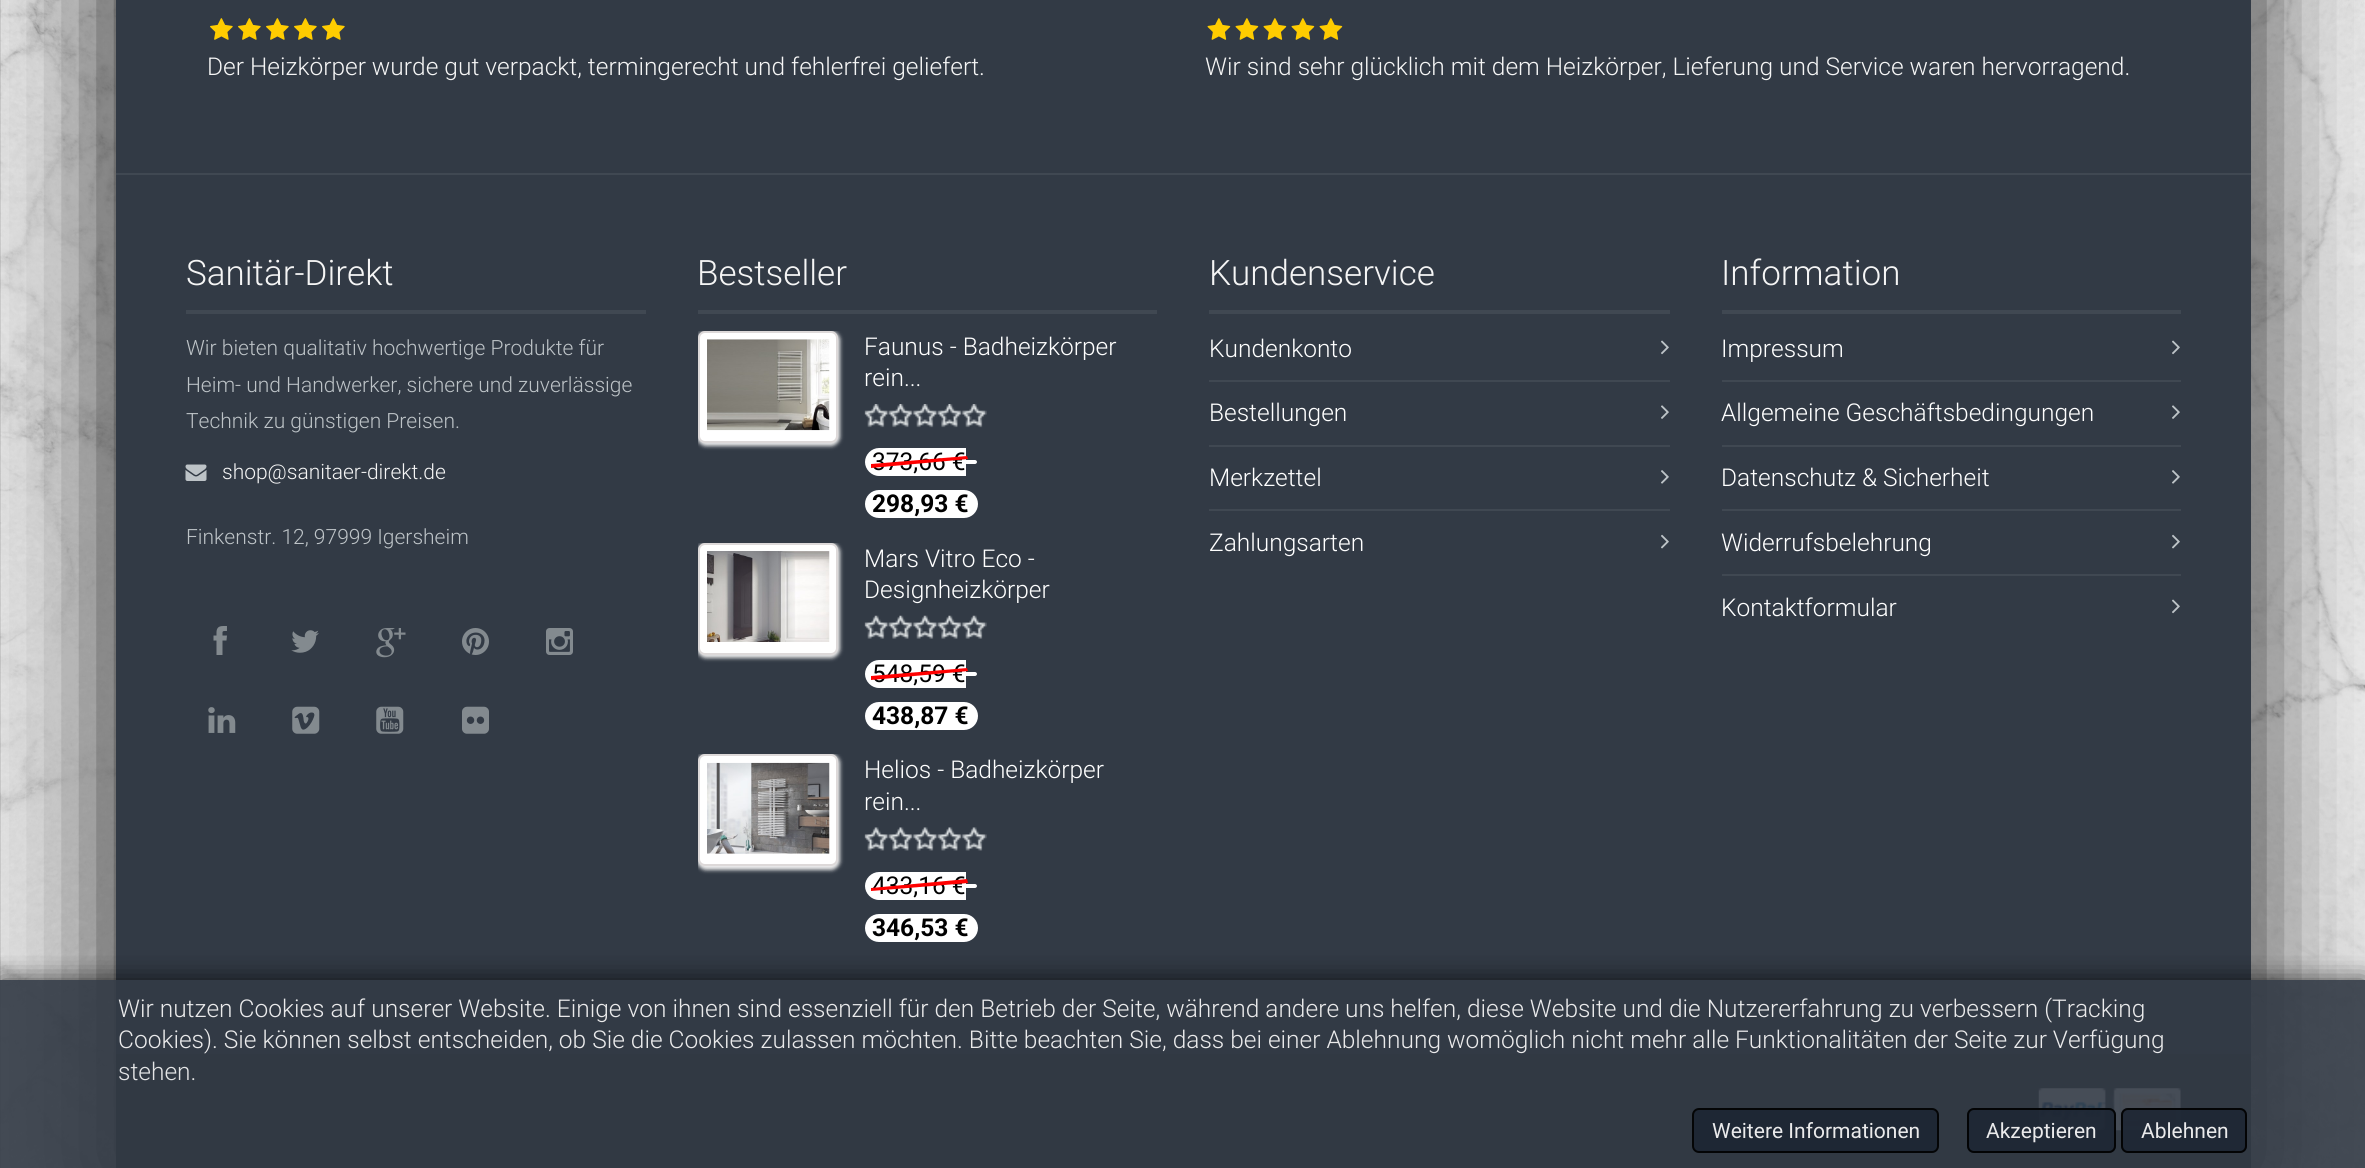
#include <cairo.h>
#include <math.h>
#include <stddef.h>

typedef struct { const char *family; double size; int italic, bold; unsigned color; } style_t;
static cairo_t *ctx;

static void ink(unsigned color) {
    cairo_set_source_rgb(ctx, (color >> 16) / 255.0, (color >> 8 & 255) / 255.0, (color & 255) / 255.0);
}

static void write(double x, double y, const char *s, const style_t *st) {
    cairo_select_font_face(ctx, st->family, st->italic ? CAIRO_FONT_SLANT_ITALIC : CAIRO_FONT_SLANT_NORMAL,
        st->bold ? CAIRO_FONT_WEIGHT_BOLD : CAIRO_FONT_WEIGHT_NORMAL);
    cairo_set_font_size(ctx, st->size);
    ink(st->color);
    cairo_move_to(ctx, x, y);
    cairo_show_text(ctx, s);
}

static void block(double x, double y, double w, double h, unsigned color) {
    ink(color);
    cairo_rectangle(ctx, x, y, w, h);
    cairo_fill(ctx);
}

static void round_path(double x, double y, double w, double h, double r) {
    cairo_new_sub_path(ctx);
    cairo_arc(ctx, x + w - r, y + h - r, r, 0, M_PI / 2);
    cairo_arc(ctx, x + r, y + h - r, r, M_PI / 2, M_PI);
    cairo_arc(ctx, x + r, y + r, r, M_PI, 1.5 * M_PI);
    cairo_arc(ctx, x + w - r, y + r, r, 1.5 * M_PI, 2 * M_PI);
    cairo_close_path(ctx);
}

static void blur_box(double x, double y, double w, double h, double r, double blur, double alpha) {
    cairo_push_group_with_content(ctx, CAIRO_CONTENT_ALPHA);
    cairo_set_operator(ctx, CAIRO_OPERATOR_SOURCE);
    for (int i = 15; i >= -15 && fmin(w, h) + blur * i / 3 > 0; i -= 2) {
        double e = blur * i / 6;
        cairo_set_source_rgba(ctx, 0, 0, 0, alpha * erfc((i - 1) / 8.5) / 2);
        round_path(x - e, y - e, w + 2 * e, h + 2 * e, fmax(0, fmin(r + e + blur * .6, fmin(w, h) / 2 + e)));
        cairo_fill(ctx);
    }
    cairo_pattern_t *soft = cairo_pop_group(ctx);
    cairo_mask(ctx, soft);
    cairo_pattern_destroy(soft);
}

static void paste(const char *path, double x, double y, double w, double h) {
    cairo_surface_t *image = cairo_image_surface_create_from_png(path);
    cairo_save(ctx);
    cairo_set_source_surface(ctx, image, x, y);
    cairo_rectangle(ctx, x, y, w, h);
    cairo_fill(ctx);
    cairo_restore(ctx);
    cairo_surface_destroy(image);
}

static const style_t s1 = {"Roboto Light", 24.5, 0, 0, 0xf5f5f5};
static const style_t s2 = {"Roboto Light", 35, 0, 0, 0xf5f5f5};
static const style_t s3 = {"Roboto Light", 21, 0, 0, 0xbdc3c7};
static const style_t s4 = {"Roboto Light", 21, 0, 0, 0xf5f5f5};
static const style_t s5 = {"Roboto Light", 24.5, 0, 0, 0xffffff};
static const style_t s6 = {"Roboto", 24.5, 0, 0, 0x000000};
static const style_t s7 = {"Roboto", 24.5, 0, 1, 0x000000};
static const style_t s8 = {"Roboto Light", 24.5, 0, 0, 0xeaeaeb};
static const style_t s9 = {"Roboto Light", 24.5, 0, 0, 0xe4e5e6};
static const style_t s10 = {"Roboto", 21, 0, 0, 0xeaeaeb};

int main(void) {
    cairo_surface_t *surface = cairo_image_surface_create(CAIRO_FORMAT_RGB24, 2365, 1168);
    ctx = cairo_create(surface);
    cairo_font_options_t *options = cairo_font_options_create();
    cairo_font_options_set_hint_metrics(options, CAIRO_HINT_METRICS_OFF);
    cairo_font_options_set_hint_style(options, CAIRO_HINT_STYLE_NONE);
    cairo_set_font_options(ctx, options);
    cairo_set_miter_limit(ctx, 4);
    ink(0xffffff);
    cairo_paint(ctx);
    paste("pic1.png", 0, 0, 2365, 1168);
    ink(0x000000);
    blur_box(105, -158, 2153, 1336, 0, 52.5, 0.79);
    block(116, 0, 2135, 173, 0x323a45);
    block(116, 173, 2135, 2, 0x404852);
    paste("pic2.png", 210, 18, 23, 22);
    paste("pic2.png", 238, 18, 23, 22);
    paste("pic2.png", 266, 18, 23, 22);
    paste("pic2.png", 294, 18, 23, 22);
    paste("pic2.png", 322, 18, 23, 22);
    write(207, 75, "Der Heizkörper wurde gut verpackt, termingerecht und fehlerfrei geliefert.", &s1);
    paste("pic3.png", 1207, 18, 24, 22);
    paste("pic3.png", 1235, 18, 24, 22);
    paste("pic3.png", 1263, 18, 24, 22);
    paste("pic3.png", 1291, 18, 24, 22);
    paste("pic3.png", 1319, 18, 24, 22);
    write(1205, 75, "Wir sind sehr glücklich mit dem Heizkörper, Lieferung und Service waren hervorragend.", &s1);
    block(116, 175, 2135, 879, 0x323a45);
    block(186, 310, 460, 4, 0x404852);
    write(186, 285, "Sanitär-Direkt", &s2);
    write(186, 355, "Wir bieten qualitativ hochwertige Produkte für", &s3);
    write(186, 392, "Heim- und Handwerker, sichere und zuverlässige", &s3);
    write(186, 428, "Technik zu günstigen Preisen.", &s3);
    paste("pic4.png", 185, 464, 22, 17);
    write(222, 479, "shop@sanitaer-direkt.de", &s4);
    write(186, 544, "Finkenstr. 12, 97999 Igersheim", &s3);
    paste("pic5.png", 213, 626, 14, 29);
    paste("pic6.png", 291, 630, 28, 23);
    paste("pic7.png", 376, 628, 30, 30);
    paste("pic8.png", 462, 628, 27, 27);
    paste("pic9.png", 546, 628, 27, 27);
    paste("pic10.png", 208, 707, 28, 26);
    paste("pic11.png", 292, 706, 28, 28);
    paste("pic12.png", 376, 706, 28, 28);
    paste("pic13.png", 462, 706, 27, 28);
    block(698, 310, 459, 4, 0x404852);
    write(697, 285, "Bestseller", &s2);
    cairo_save(ctx);
    cairo_rectangle(ctx, 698, 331, 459, 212);
    cairo_clip(ctx);
    ink(0xeeeeee);
    blur_box(697, 331, 143, 115, 9, 2, 1);
    cairo_restore(ctx);
    ink(0xffffff);
    round_path(699, 332, 138, 110, 6);
    cairo_fill_preserve(ctx);
    ink(0xddd9d9);
    cairo_stroke(ctx);
    paste("pic14.png", 707, 339, 123, 92);
    write(864, 355, "Faunus - Badheizkörper", &s5);
    write(864, 386, "rein...", &s5);
    paste("pic15.png", 864, 404, 123, 24);
    cairo_new_path(ctx);
    cairo_move_to(ctx, 879, 448);
    cairo_line_to(ctx, 966, 448);
    cairo_line_to(ctx, 966, 476);
    cairo_line_to(ctx, 879, 476);
    cairo_curve_to(ctx, 871.5, 476, 865, 469.5, 865, 462);
    cairo_curve_to(ctx, 865, 454.5, 871.5, 448, 879, 448);
    cairo_close_path(ctx);
    cairo_fill(ctx);
    cairo_new_path(ctx);
    cairo_move_to(ctx, 872, 460);
    cairo_line_to(ctx, 975, 460);
    cairo_curve_to(ctx, 976, 460, 977, 461, 977, 462);
    cairo_curve_to(ctx, 977, 463, 976, 464, 975, 464);
    cairo_line_to(ctx, 872, 464);
    cairo_close_path(ctx);
    cairo_fill(ctx);
    write(872, 470, "373,66 €", &s6);
    ink(0xff0000);
    cairo_new_path(ctx);
    cairo_move_to(ctx, 871, 464);
    cairo_line_to(ctx, 967, 456);
    cairo_line_to(ctx, 968, 459);
    cairo_line_to(ctx, 871, 468);
    cairo_close_path(ctx);
    cairo_fill(ctx);
    ink(0xffffff);
    round_path(865, 490, 113, 28, 14);
    cairo_fill(ctx);
    write(872, 512, "298,93 €", &s7);
    cairo_save(ctx);
    cairo_rectangle(ctx, 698, 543, 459, 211);
    cairo_clip(ctx);
    ink(0xeeeeee);
    blur_box(697, 543, 143, 115, 9, 2, 1);
    cairo_restore(ctx);
    ink(0xffffff);
    round_path(699, 544, 138, 110, 6);
    cairo_fill_preserve(ctx);
    ink(0xddd9d9);
    cairo_stroke(ctx);
    paste("pic16.png", 707, 551, 123, 91);
    write(864, 567, "Mars Vitro Eco -", &s5);
    write(864, 598, "Designheizkörper", &s5);
    paste("pic17.png", 864, 615, 123, 24);
    cairo_new_path(ctx);
    cairo_move_to(ctx, 879, 660);
    cairo_line_to(ctx, 966, 660);
    cairo_line_to(ctx, 966, 688);
    cairo_line_to(ctx, 879, 688);
    cairo_curve_to(ctx, 871.5, 688, 865, 681.5, 865, 674);
    cairo_curve_to(ctx, 865, 666.5, 871.5, 660, 879, 660);
    cairo_close_path(ctx);
    cairo_fill(ctx);
    cairo_new_path(ctx);
    cairo_move_to(ctx, 872, 672);
    cairo_line_to(ctx, 975, 672);
    cairo_curve_to(ctx, 976, 672, 977, 673, 977, 674);
    cairo_curve_to(ctx, 977, 675, 976, 676, 975, 676);
    cairo_line_to(ctx, 872, 676);
    cairo_close_path(ctx);
    cairo_fill(ctx);
    write(872, 682, "548,59 €", &s6);
    ink(0xff0000);
    cairo_new_path(ctx);
    cairo_move_to(ctx, 871, 676);
    cairo_line_to(ctx, 967, 668);
    cairo_line_to(ctx, 968, 671);
    cairo_line_to(ctx, 871, 680);
    cairo_close_path(ctx);
    cairo_fill(ctx);
    ink(0xffffff);
    round_path(865, 702, 113, 28, 14);
    cairo_fill(ctx);
    write(872, 724, "438,87 €", &s7);
    cairo_save(ctx);
    cairo_rectangle(ctx, 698, 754, 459, 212);
    cairo_clip(ctx);
    ink(0xeeeeee);
    blur_box(697, 754, 143, 116, 9, 2, 1);
    cairo_restore(ctx);
    ink(0xffffff);
    round_path(699, 755, 138, 110, 6);
    cairo_fill_preserve(ctx);
    ink(0xddd9d9);
    cairo_stroke(ctx);
    paste("pic18.png", 707, 762, 123, 92);
    write(864, 778, "Helios - Badheizkörper", &s5);
    write(864, 810, "rein...", &s5);
    paste("pic19.png", 864, 827, 123, 24);
    cairo_new_path(ctx);
    cairo_move_to(ctx, 879, 872);
    cairo_line_to(ctx, 966, 872);
    cairo_line_to(ctx, 966, 900);
    cairo_line_to(ctx, 879, 900);
    cairo_curve_to(ctx, 871.5, 900, 865, 893.5, 865, 886);
    cairo_curve_to(ctx, 865, 878.5, 871.5, 872, 879, 872);
    cairo_close_path(ctx);
    cairo_fill(ctx);
    cairo_new_path(ctx);
    cairo_move_to(ctx, 872, 884);
    cairo_line_to(ctx, 975, 884);
    cairo_curve_to(ctx, 976, 884, 977, 885, 977, 886);
    cairo_curve_to(ctx, 977, 887, 976, 888, 975, 888);
    cairo_line_to(ctx, 872, 888);
    cairo_close_path(ctx);
    cairo_fill(ctx);
    write(872, 894, "433,16 €", &s6);
    ink(0xff0000);
    cairo_new_path(ctx);
    cairo_move_to(ctx, 871, 888);
    cairo_line_to(ctx, 967, 879);
    cairo_line_to(ctx, 968, 883);
    cairo_line_to(ctx, 871, 891);
    cairo_close_path(ctx);
    cairo_fill(ctx);
    ink(0xffffff);
    round_path(865, 914, 113, 28, 14);
    cairo_fill(ctx);
    write(872, 936, "346,53 €", &s7);
    block(1209, 310, 461, 4, 0x404852);
    write(1209, 285, "Kundenservice", &s2);
    write(1209, 357, "Kundenkonto", &s5);
    paste("pic20.png", 1661, 340, 8, 15);
    block(1209, 380, 461, 2, 0x404852);
    write(1209, 421, "Bestellungen", &s5);
    paste("pic21.png", 1661, 405, 8, 14);
    block(1209, 445, 461, 2, 0x404852);
    write(1209, 486, "Merkzettel", &s5);
    paste("pic22.png", 1661, 470, 8, 14);
    block(1209, 509, 461, 2, 0x404852);
    write(1209, 551, "Zahlungsarten", &s5);
    paste("pic23.png", 1661, 534, 8, 15);
    block(1722, 310, 459, 4, 0x404852);
    write(1721, 285, "Information", &s2);
    write(1721, 357, "Impressum", &s5);
    paste("pic20.png", 2172, 340, 8, 15);
    block(1722, 380, 459, 2, 0x404852);
    write(1721, 421, "Allgemeine Geschäftsbedingungen", &s5);
    paste("pic21.png", 2172, 405, 8, 14);
    block(1722, 445, 459, 2, 0x404852);
    write(1721, 486, "Datenschutz & Sicherheit", &s5);
    paste("pic22.png", 2172, 470, 8, 14);
    block(1722, 509, 459, 2, 0x404852);
    write(1721, 551, "Widerrufsbelehrung", &s5);
    paste("pic23.png", 2172, 534, 8, 15);
    block(1722, 574, 459, 2, 0x404852);
    write(1721, 616, "Kontaktformular", &s5);
    paste("pic20.png", 2172, 599, 8, 15);
    block(116, 1054, 2135, 114, 0x292f38);
    paste("pic24.png", 2038, 1088, 143, 43);
    cairo_save(ctx);
    cairo_rectangle(ctx, 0, 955, 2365, 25);
    cairo_clip(ctx);
    ink(0x000000);
    blur_box(0, 980, 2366, 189, 0, 13, 0.68);
    cairo_restore(ctx);
    cairo_set_source_rgba(ctx, 0.196, 0.227, 0.271, 0.9);
    cairo_rectangle(ctx, 0, 980, 2365, 188);
    cairo_fill(ctx);
    write(118, 1017, "Wir nutzen Cookies auf unserer Website. Einige von ihnen sind essenziell für den Betrieb der Seite, während andere uns helfen, diese Website und die Nutzererfahrung zu verbessern (Tracking", &s8);
    write(118, 1048, "Cookies). Sie können selbst entscheiden, ob Sie die Cookies zulassen möchten. Bitte beachten Sie, dass bei einer Ablehnung womöglich nicht mehr alle Funktionalitäten der Seite zur Verfügung", &s8);
    write(118, 1080, "stehen.", &s9);
    ink(0x1e2734);
    round_path(1693, 1109, 245, 43, 6);
    cairo_fill_preserve(ctx);
    ink(0x040506);
    cairo_stroke(ctx);
    write(1712, 1138, "Weitere Informationen", &s10);
    cairo_set_source_rgba(ctx, 0.114, 0.149, 0.2, 0.9);
    round_path(1967, 1108, 149, 45, 7);
    cairo_fill(ctx);
    round_path(1968, 1109, 147, 43, 6);
    cairo_set_source_rgba(ctx, 0, 0, 0, 0.9);
    cairo_stroke(ctx);
    write(1986, 1138, "Akzeptieren", &s10);
    cairo_set_source_rgba(ctx, 0.114, 0.149, 0.2, 0.9);
    round_path(2121, 1108, 126, 45, 7);
    cairo_fill(ctx);
    round_path(2122, 1109, 124, 43, 6);
    cairo_set_source_rgba(ctx, 0, 0, 0, 0.9);
    cairo_stroke(ctx);
    write(2141, 1138, "Ablehnen", &s10);
    cairo_surface_write_to_png(surface, "screenshot.png");
    cairo_font_options_destroy(options);
    cairo_destroy(ctx);
    cairo_surface_destroy(surface);
    return 0;
}
